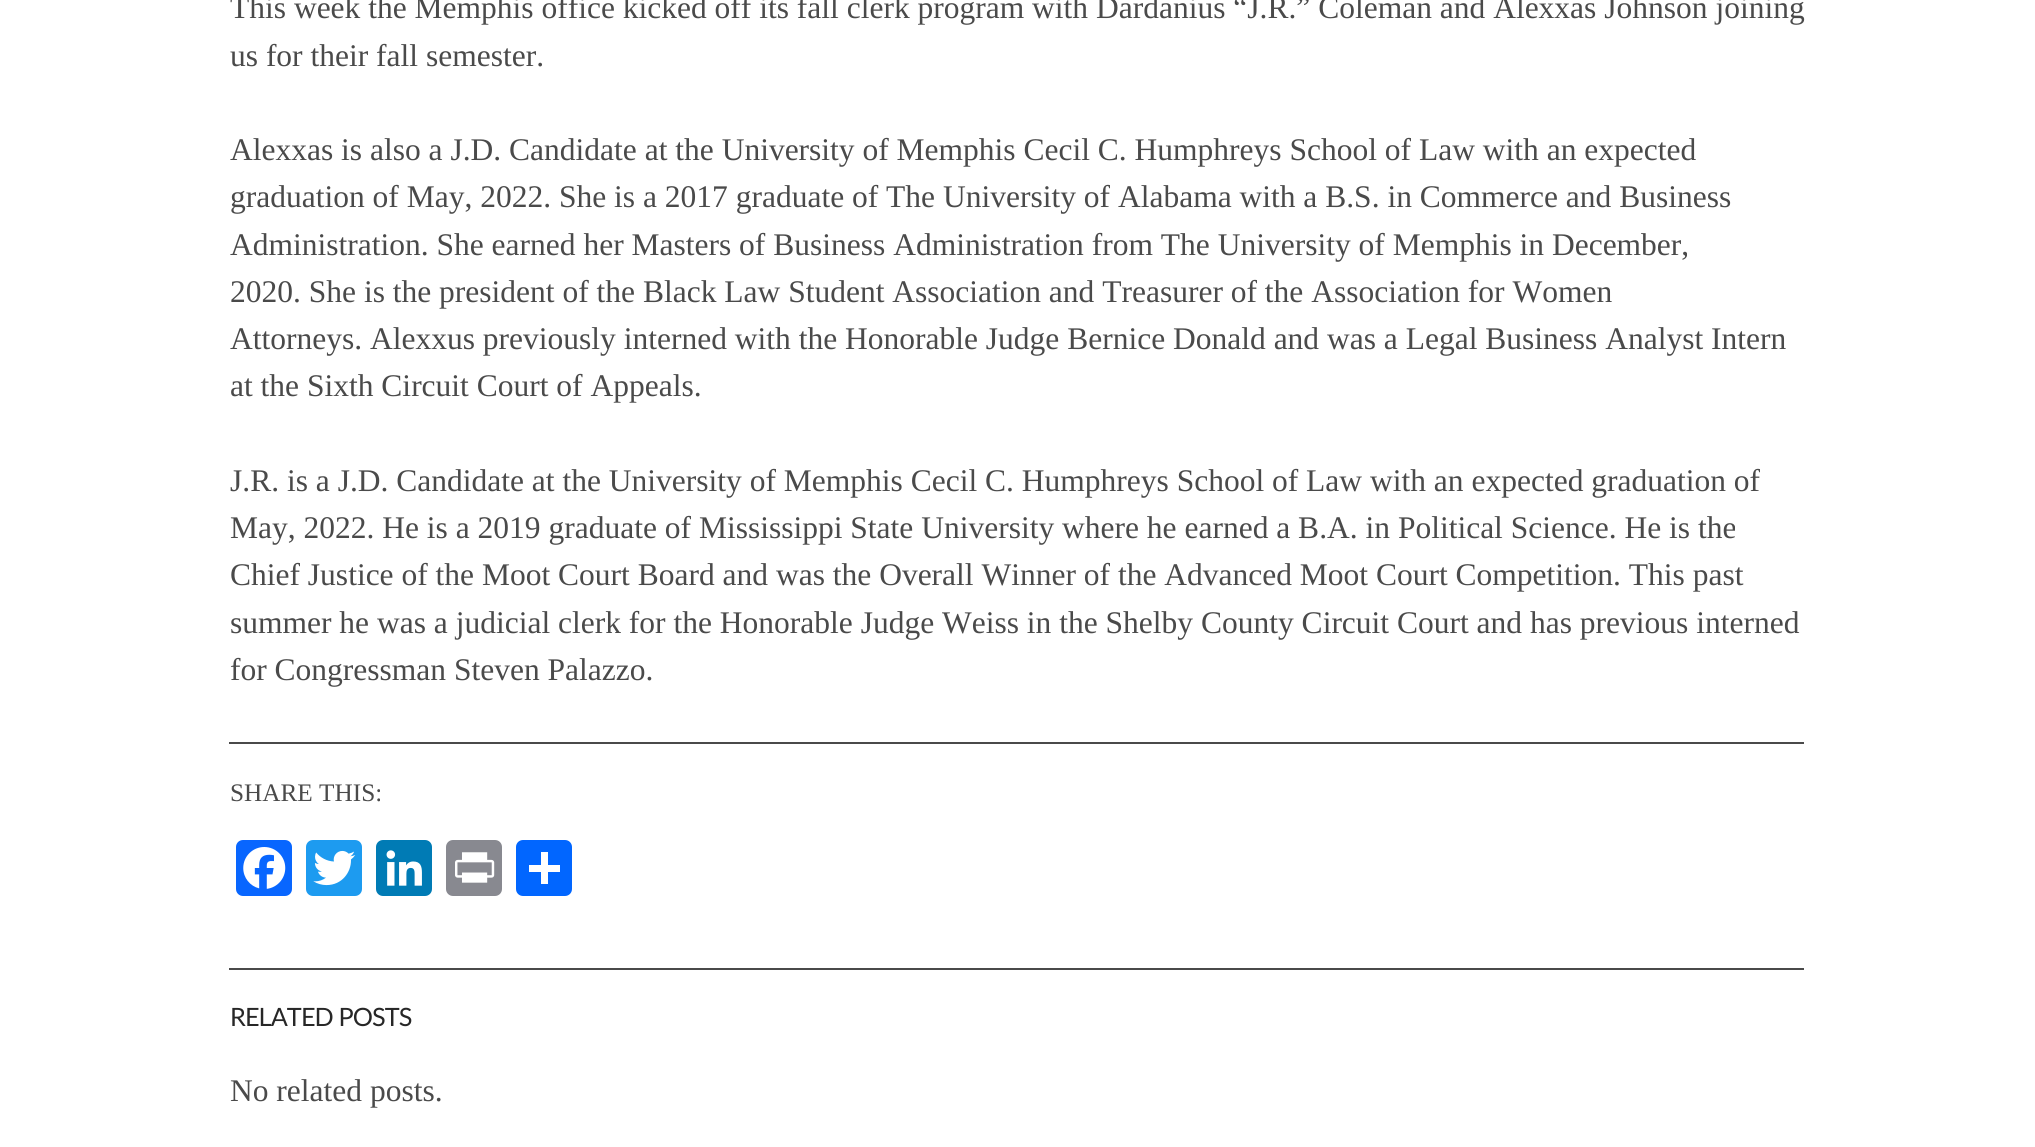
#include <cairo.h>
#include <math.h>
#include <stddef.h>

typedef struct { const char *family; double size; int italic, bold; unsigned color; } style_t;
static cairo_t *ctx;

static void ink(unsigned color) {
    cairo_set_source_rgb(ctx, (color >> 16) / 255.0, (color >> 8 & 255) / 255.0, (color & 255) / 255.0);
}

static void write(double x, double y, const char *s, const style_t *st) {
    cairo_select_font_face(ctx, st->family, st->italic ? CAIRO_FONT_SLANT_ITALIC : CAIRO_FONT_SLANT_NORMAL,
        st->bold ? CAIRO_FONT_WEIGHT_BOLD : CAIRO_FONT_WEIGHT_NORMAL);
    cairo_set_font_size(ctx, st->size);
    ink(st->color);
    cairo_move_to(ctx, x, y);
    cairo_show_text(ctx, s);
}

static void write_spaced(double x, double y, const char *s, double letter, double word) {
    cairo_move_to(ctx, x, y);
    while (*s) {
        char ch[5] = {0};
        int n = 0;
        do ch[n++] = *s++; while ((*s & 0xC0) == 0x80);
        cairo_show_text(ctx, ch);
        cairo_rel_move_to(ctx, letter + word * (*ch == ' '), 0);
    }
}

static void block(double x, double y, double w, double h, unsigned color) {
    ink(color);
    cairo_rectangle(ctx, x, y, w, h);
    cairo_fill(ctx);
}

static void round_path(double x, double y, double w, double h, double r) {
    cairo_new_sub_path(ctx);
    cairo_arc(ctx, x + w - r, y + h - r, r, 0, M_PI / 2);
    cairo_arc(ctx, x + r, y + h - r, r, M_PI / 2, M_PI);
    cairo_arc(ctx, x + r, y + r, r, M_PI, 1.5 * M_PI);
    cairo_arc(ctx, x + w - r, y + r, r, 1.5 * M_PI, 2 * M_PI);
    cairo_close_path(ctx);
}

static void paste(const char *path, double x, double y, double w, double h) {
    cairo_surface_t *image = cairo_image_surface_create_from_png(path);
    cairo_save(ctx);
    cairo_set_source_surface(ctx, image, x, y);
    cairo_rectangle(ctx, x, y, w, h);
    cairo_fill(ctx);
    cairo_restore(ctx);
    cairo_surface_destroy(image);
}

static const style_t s1 = {"Liberation Serif", 31.5, 0, 0, 0x4a4a4a};
static const style_t s2 = {"Liberation Serif", 25.25, 0, 0, 0x4a4a4a};

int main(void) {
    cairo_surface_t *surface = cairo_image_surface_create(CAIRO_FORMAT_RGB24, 2035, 1147);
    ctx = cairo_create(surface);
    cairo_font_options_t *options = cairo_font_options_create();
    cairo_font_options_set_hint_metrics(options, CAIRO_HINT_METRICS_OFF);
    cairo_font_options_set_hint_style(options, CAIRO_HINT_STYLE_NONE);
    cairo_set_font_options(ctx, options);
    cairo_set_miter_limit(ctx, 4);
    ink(0xffffff);
    cairo_paint(ctx);
    write(230, 18, "This week the Memphis office kicked off its fall clerk program with Dardanius “J.R.” Coleman and Alexxas Johnson joining", &s1);
    write(230, 66, "us for their fall semester.", &s1);
    write(230, 160, "Alexxas is also a J.D. Candidate at the University of Memphis Cecil C. Humphreys School of Law with an expected", &s1);
    write(230, 207, "graduation of May, 2022. She is a 2017 graduate of The University of Alabama with a B.S. in Commerce and Business", &s1);
    write(230, 255, "Administration. She earned her Masters of Business Administration from The University of Memphis in December,", &s1);
    write(230, 302, "2020. She is the president of the Black Law Student Association and Treasurer of the Association for Women", &s1);
    write(230, 349, "Attorneys. Alexxus previously interned with the Honorable Judge Bernice Donald and was a Legal Business Analyst Intern", &s1);
    write(230, 396, "at the Sixth Circuit Court of Appeals.", &s1);
    write(230, 491, "J.R. is a J.D. Candidate at the University of Memphis Cecil C. Humphreys School of Law with an expected graduation of", &s1);
    write(230, 538, "May, 2022. He is a 2019 graduate of Mississippi State University where he earned a B.A. in Political Science. He is the", &s1);
    write(230, 585, "Chief Justice of the Moot Court Board and was the Overall Winner of the Advanced Moot Court Competition. This past", &s1);
    write(230, 633, "summer he was a judicial clerk for the Honorable Judge Weiss in the Shelby County Circuit Court and has previous interned", &s1);
    write(230, 680, "for Congressman Steven Palazzo.", &s1);
    block(229, 742, 1575, 2, 0x4a4a4a);
    write(230, 801, "SHARE THIS:", &s2);
    ink(0x0866ff);
    round_path(236, 840, 56, 56, 7);
    cairo_fill(ctx);
    paste("pic1.png", 243, 847, 43, 42);
    ink(0x1d9bf0);
    round_path(306, 840, 56, 56, 7);
    cairo_fill(ctx);
    paste("pic2.png", 313, 850, 43, 36);
    ink(0x007bb5);
    round_path(376, 840, 56, 56, 7);
    cairo_fill(ctx);
    paste("pic3.png", 386, 850, 36, 36);
    ink(0x888990);
    round_path(446, 840, 56, 56, 7);
    cairo_fill(ctx);
    paste("pic4.png", 455, 852, 40, 31);
    ink(0x0166ff);
    round_path(516, 840, 56, 56, 7);
    cairo_fill(ctx);
    block(541, 852, 7, 32, 0xffffff);
    block(529, 865, 31, 7, 0xffffff);
    block(229, 968, 1575, 2, 0x4a4a4a);
    cairo_select_font_face(ctx, "Lato", CAIRO_FONT_SLANT_NORMAL, CAIRO_FONT_WEIGHT_NORMAL);
    ink(0x272727);
    write_spaced(230, 1026, "RELATED POSTS", -0.9, 0);
    write(230, 1101, "No related posts.", &s1);
    cairo_surface_write_to_png(surface, "screenshot.png");
    cairo_font_options_destroy(options);
    cairo_destroy(ctx);
    cairo_surface_destroy(surface);
    return 0;
}
